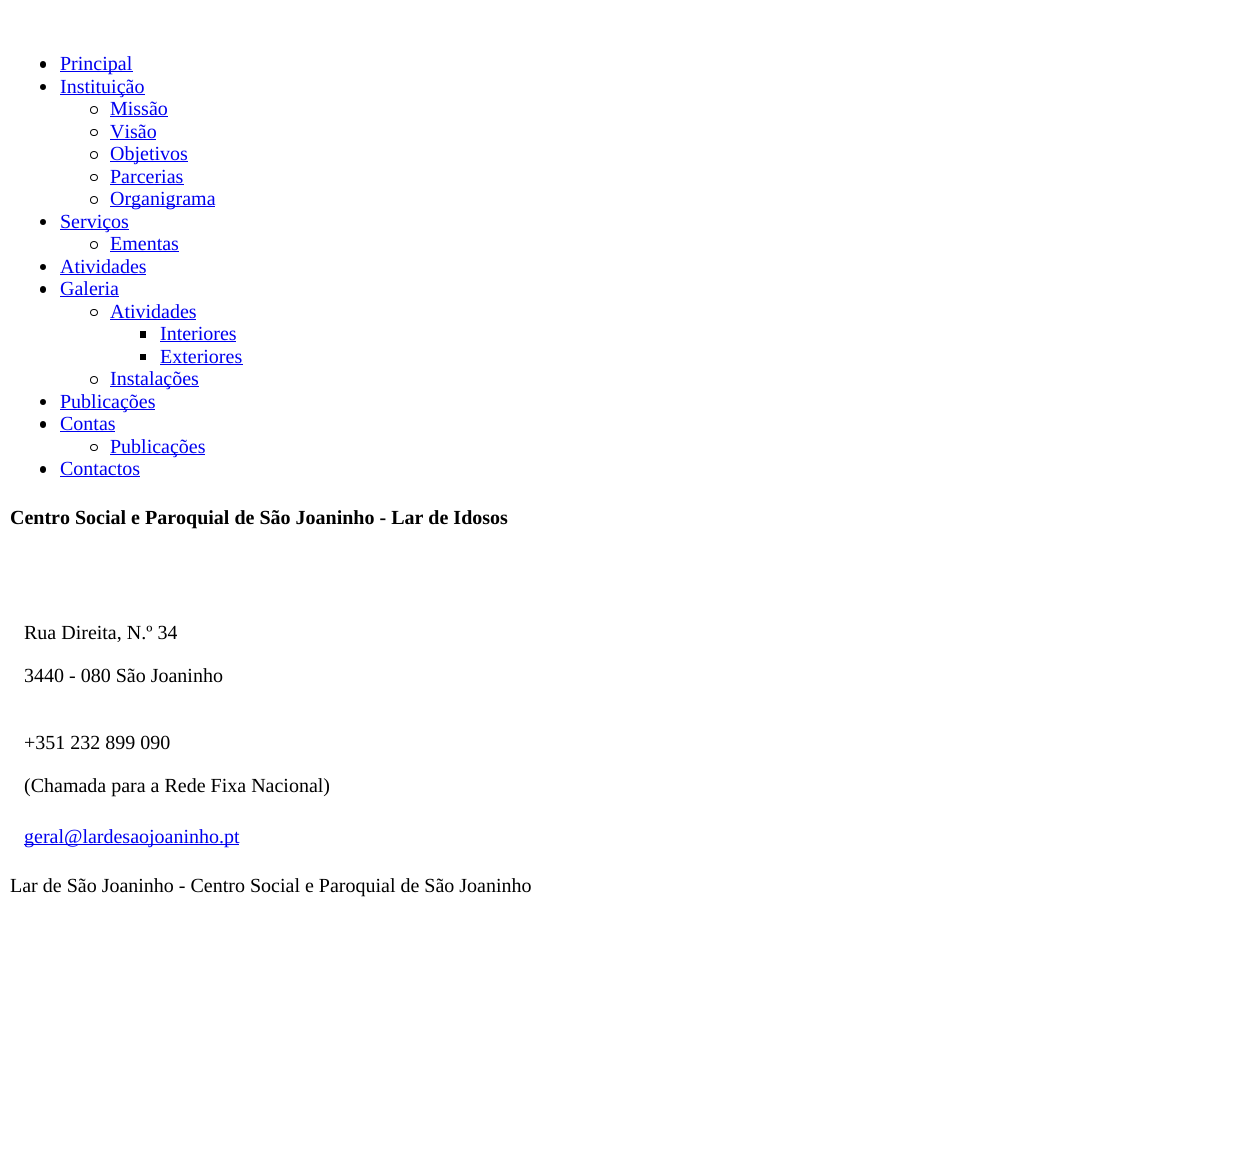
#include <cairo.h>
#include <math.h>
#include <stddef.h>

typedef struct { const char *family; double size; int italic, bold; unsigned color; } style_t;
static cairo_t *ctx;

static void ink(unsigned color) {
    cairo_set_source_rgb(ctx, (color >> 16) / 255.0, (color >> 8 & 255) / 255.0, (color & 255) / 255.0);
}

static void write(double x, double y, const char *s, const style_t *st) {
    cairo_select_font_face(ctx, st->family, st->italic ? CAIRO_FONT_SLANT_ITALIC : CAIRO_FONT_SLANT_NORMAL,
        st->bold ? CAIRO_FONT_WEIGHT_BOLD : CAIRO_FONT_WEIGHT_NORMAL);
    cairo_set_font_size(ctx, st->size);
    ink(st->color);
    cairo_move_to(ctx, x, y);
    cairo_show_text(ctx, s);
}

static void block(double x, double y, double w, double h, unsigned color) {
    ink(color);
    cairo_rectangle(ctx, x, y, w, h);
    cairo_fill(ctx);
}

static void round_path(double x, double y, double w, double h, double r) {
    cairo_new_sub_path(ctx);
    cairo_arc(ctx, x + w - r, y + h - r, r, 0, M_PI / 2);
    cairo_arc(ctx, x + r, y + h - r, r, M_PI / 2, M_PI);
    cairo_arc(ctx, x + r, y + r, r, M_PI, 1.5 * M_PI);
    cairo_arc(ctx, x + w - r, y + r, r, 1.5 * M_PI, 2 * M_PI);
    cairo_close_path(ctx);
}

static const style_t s1 = {"Liberation Serif", 20, 0, 0, 0x0000ee};
static const style_t s2 = {"Liberation Serif", 20, 0, 1, 0x000000};
static const style_t s3 = {"Liberation Serif", 20, 0, 0, 0x000000};

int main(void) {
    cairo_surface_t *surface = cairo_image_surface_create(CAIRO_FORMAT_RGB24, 1239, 1173);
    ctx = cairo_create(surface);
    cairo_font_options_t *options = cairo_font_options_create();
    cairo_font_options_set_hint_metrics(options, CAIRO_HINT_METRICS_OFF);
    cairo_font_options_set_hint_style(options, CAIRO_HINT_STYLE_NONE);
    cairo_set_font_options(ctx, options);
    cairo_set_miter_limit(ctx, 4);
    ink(0xffffff);
    cairo_paint(ctx);
    ink(0x000000);
    round_path(40, 61, 6, 7, 3);
    cairo_fill(ctx);
    block(60, 71, 73, 1, 0x0000ee);
    write(60, 70, "Principal", &s1);
    ink(0x000000);
    cairo_new_path(ctx);
    cairo_arc(ctx, 43, 87, 3, 0, 2 * M_PI);
    cairo_fill(ctx);
    block(60, 94, 85, 1, 0x0000ee);
    write(60, 93, "Instituição", &s1);
    cairo_new_path(ctx);
    cairo_arc(ctx, 94, 110, 3.5, 0, 2 * M_PI);
    ink(0x000000);
    cairo_set_line_width(ctx, 1);
    cairo_stroke(ctx);
    write(110, 115, "Missão", &s1);
    block(110, 116, 58, 1, 0x0000ee);
    round_path(90.5, 129.5, 7, 6, 3);
    ink(0x000000);
    cairo_stroke(ctx);
    write(110, 138, "Visão", &s1);
    block(110, 139, 46, 1, 0x0000ee);
    cairo_new_path(ctx);
    cairo_arc(ctx, 94, 155, 3.5, 0, 2 * M_PI);
    ink(0x000000);
    cairo_stroke(ctx);
    block(110, 161, 78, 1, 0x0000ee);
    write(110, 160, "Objetivos", &s1);
    round_path(90.5, 174.5, 7, 6, 3);
    ink(0x000000);
    cairo_stroke(ctx);
    write(110, 183, "Parcerias", &s1);
    block(110, 184, 74, 1, 0x0000ee);
    cairo_new_path(ctx);
    cairo_arc(ctx, 94, 200, 3.5, 0, 2 * M_PI);
    ink(0x000000);
    cairo_stroke(ctx);
    block(110, 206, 105, 1, 0x0000ee);
    write(110, 205, "Organigrama", &s1);
    ink(0x000000);
    cairo_new_path(ctx);
    cairo_arc(ctx, 43, 222, 3, 0, 2 * M_PI);
    cairo_fill(ctx);
    block(60, 229, 69, 1, 0x0000ee);
    write(60, 228, "Serviços", &s1);
    cairo_new_path(ctx);
    cairo_arc(ctx, 94, 245, 3.5, 0, 2 * M_PI);
    ink(0x000000);
    cairo_stroke(ctx);
    write(110, 250, "Ementas", &s1);
    block(110, 251, 69, 1, 0x0000ee);
    ink(0x000000);
    cairo_new_path(ctx);
    cairo_arc(ctx, 43, 267, 3, 0, 2 * M_PI);
    cairo_fill(ctx);
    write(60, 273, "Atividades", &s1);
    block(60, 274, 86, 1, 0x0000ee);
    ink(0x000000);
    round_path(40, 286, 6, 7, 3);
    cairo_fill(ctx);
    write(60, 295, "Galeria", &s1);
    block(60, 296, 59, 1, 0x0000ee);
    round_path(90.5, 309.5, 7, 6, 3);
    ink(0x000000);
    cairo_stroke(ctx);
    write(110, 318, "Atividades", &s1);
    block(110, 319, 86, 1, 0x0000ee);
    block(140, 331, 6, 7, 0x000000);
    write(160, 340, "Interiores", &s1);
    block(160, 341, 76, 1, 0x0000ee);
    block(140, 354, 6, 6, 0x000000);
    write(160, 363, "Exteriores", &s1);
    block(160, 364, 83, 1, 0x0000ee);
    cairo_new_path(ctx);
    cairo_arc(ctx, 94, 380, 3.5, 0, 2 * M_PI);
    ink(0x000000);
    cairo_stroke(ctx);
    block(110, 386, 89, 1, 0x0000ee);
    write(110, 385, "Instalações", &s1);
    ink(0x000000);
    cairo_new_path(ctx);
    cairo_arc(ctx, 43, 402, 3, 0, 2 * M_PI);
    cairo_fill(ctx);
    block(60, 409, 95, 1, 0x0000ee);
    write(60, 408, "Publicações", &s1);
    ink(0x000000);
    round_path(40, 421, 6, 7, 3);
    cairo_fill(ctx);
    write(60, 430, "Contas", &s1);
    block(60, 431, 55, 1, 0x0000ee);
    round_path(90.5, 444.5, 7, 6, 3);
    ink(0x000000);
    cairo_stroke(ctx);
    block(110, 454, 95, 1, 0x0000ee);
    write(110, 453, "Publicações", &s1);
    ink(0x000000);
    round_path(40, 466, 6, 7, 3);
    cairo_fill(ctx);
    write(60, 475, "Contactos", &s1);
    block(60, 476, 80, 1, 0x0000ee);
    write(10, 524, "Centro Social e Paroquial de São Joaninho - Lar de Idosos", &s2);
    write(24, 639, "Rua Direita, N.º 34", &s3);
    write(24, 682, "3440 - 080 São Joaninho", &s3);
    write(24, 749, "+351 232 899 090", &s3);
    write(24, 792, "(Chamada para a Rede Fixa Nacional)", &s3);
    block(24, 844, 215, 1, 0x0000ee);
    write(24, 843, "geral@lardesaojoaninho.pt", &s1);
    write(10, 892, "Lar de São Joaninho - Centro Social e Paroquial de São Joaninho", &s3);
    cairo_surface_write_to_png(surface, "screenshot.png");
    cairo_font_options_destroy(options);
    cairo_destroy(ctx);
    cairo_surface_destroy(surface);
    return 0;
}
